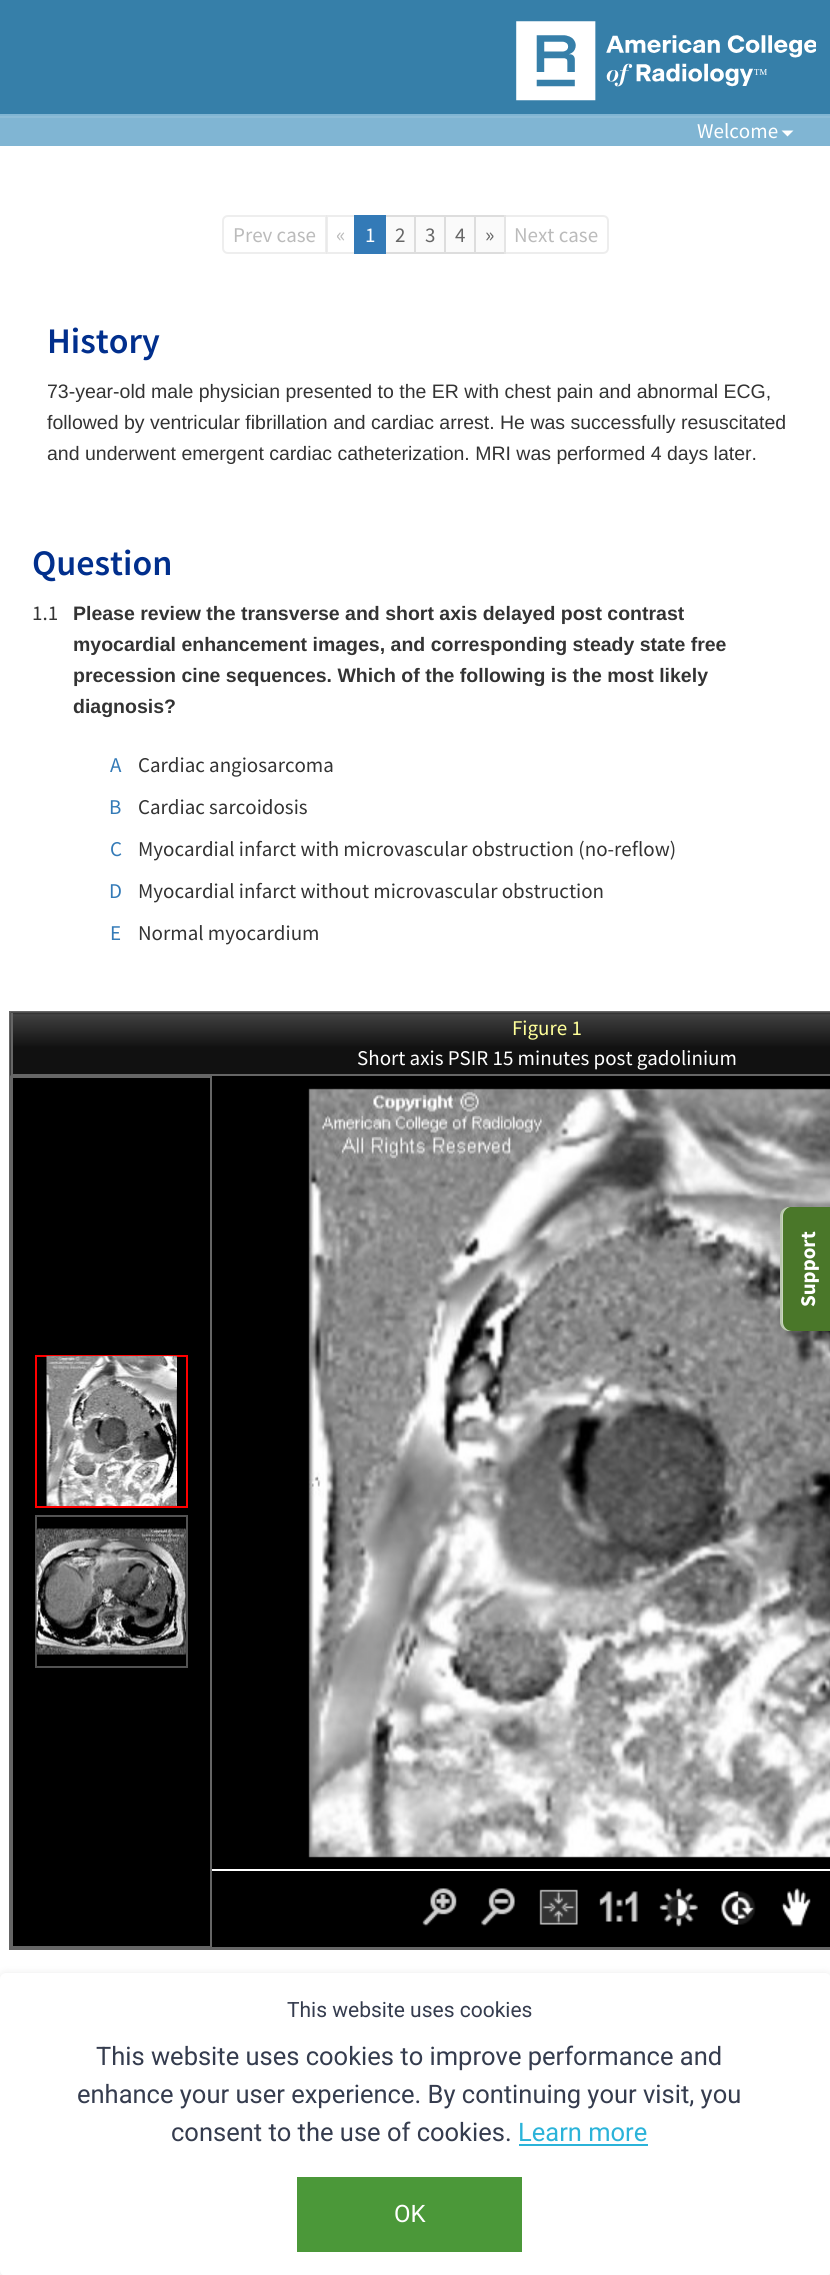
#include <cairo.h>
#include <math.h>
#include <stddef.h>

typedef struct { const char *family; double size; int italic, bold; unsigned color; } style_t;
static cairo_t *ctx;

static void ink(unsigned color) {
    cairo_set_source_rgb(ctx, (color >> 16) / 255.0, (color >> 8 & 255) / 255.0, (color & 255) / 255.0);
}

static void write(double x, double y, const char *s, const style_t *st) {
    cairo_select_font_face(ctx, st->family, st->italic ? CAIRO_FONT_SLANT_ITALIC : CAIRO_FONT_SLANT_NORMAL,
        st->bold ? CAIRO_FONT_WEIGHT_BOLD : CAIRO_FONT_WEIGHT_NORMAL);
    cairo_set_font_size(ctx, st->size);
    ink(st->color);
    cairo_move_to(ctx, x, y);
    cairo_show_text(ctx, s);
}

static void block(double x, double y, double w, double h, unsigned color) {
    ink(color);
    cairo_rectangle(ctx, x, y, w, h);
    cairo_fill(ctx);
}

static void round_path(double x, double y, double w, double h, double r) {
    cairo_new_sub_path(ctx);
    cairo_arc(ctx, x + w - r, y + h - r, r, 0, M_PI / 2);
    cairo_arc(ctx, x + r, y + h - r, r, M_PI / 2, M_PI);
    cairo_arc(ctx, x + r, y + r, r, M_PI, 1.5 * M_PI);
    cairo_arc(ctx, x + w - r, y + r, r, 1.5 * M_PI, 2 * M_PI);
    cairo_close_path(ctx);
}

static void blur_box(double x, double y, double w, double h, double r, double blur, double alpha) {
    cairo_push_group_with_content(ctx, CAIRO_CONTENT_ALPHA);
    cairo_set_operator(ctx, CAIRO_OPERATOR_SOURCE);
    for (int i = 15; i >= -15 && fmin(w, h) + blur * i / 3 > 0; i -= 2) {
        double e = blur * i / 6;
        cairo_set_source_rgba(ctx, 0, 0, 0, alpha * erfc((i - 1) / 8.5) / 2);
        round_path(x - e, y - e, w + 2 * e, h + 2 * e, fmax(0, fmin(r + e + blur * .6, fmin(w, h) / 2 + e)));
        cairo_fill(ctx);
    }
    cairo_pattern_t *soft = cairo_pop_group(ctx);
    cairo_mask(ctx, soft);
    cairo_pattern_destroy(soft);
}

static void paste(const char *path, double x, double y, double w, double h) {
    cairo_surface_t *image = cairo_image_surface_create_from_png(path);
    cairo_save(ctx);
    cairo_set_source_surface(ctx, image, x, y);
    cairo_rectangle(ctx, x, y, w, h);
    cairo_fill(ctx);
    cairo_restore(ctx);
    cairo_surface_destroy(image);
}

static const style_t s1 = {"Source Sans Pro", 21, 0, 0, 0xffffff};
static const style_t s2 = {"Source Sans Pro", 21, 0, 0, 0xbbbbbb};
static const style_t s3 = {"Source Sans Pro", 22, 0, 0, 0xbbbbbb};
static const style_t s4 = {"Source Sans Pro", 21, 0, 0, 0x666666};
static const style_t s5 = {"Source Sans Pro", 22, 0, 0, 0x666666};
static const style_t s6 = {"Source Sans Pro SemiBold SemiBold", 36, 0, 0, 0x012f8d};
static const style_t s7 = {"Liberation Sans", 19.5, 0, 0, 0x333333};
static const style_t s8 = {"Source Sans Pro", 21, 0, 0, 0x333333};
static const style_t s9 = {"Liberation Sans", 19.5, 0, 1, 0x333333};
static const style_t s10 = {"Source Sans Pro", 21, 0, 0, 0x337ab7};
static const style_t s11 = {"Source Sans Pro", 21, 0, 0, 0xffff99};
static const style_t s12 = {"Source Sans Pro", 21, 0, 1, 0xffffff};
static const style_t s13 = {"Roboto", 21, 0, 0, 0x353c4e};
static const style_t s14 = {"Roboto", 25.5, 0, 0, 0x353c4e};
static const style_t s15 = {"Roboto", 25.5, 0, 0, 0x2bb3d9};
static const style_t s16 = {"Roboto", 24, 0, 0, 0xffffff};

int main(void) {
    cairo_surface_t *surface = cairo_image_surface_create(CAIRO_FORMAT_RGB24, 830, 2275);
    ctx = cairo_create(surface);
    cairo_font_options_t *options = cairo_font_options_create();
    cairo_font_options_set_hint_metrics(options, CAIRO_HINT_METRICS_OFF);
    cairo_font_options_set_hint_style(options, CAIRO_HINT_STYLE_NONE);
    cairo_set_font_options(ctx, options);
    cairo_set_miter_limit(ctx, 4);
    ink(0xffffff);
    cairo_paint(ctx);
    block(0, 0, 830, 114, 0x367fa9);
    paste("pic1.png", 516, 21, 300, 80);
    block(0, 114, 830, 32, 0x80b5d3);
    block(0, 116, 830, 2, 0x8dbcd7);
    write(697, 138, "Welcome", &s1);
    cairo_new_path(ctx);
    cairo_move_to(ctx, 781.5, 130.5);
    cairo_line_to(ctx, 793.5, 130.5);
    cairo_line_to(ctx, 787.5, 136.5);
    cairo_close_path(ctx);
    cairo_fill(ctx);
    cairo_new_path(ctx);
    cairo_move_to(ctx, 228, 216);
    cairo_line_to(ctx, 326, 216);
    cairo_line_to(ctx, 326, 253);
    cairo_line_to(ctx, 228, 253);
    cairo_curve_to(ctx, 225, 253, 223, 251, 223, 248);
    cairo_line_to(ctx, 223, 221);
    cairo_curve_to(ctx, 223, 218, 225, 216, 228, 216);
    cairo_close_path(ctx);
    ink(0xeeeeee);
    cairo_stroke(ctx);
    write(233, 242, "Prev case", &s2);
    cairo_set_source_rgba(ctx, 1, 1, 1, 0.5);
    cairo_rectangle(ctx, 326, 215, 1, 39);
    cairo_fill(ctx);
    cairo_rectangle(ctx, 327, 216, 28, 37);
    cairo_set_source_rgba(ctx, 0.867, 0.867, 0.867, 0.5);
    cairo_stroke(ctx);
    write(336, 242, "«", &s3);
    ink(0xfafafa);
    cairo_rectangle(ctx, 385, 216, 30, 37);
    cairo_fill_preserve(ctx);
    ink(0xdddddd);
    cairo_stroke(ctx);
    block(354, 215, 32, 39, 0x337ab7);
    write(365, 242, "1", &s1);
    write(395, 242, "2", &s4);
    ink(0xfafafa);
    cairo_rectangle(ctx, 415, 216, 30, 37);
    cairo_fill_preserve(ctx);
    ink(0xdddddd);
    cairo_stroke(ctx);
    write(425, 242, "3", &s4);
    ink(0xfafafa);
    cairo_rectangle(ctx, 445, 216, 30, 37);
    cairo_fill_preserve(ctx);
    ink(0xdddddd);
    cairo_stroke(ctx);
    write(455, 242, "4", &s4);
    ink(0xfafafa);
    cairo_rectangle(ctx, 475, 216, 30, 37);
    cairo_fill_preserve(ctx);
    ink(0xdddddd);
    cairo_stroke(ctx);
    write(485, 242, "»", &s5);
    cairo_set_source_rgba(ctx, 1, 1, 1, 0.5);
    cairo_new_path(ctx);
    cairo_move_to(ctx, 504, 215);
    cairo_line_to(ctx, 603, 215);
    cairo_curve_to(ctx, 606.5, 215, 609, 217.5, 609, 221);
    cairo_line_to(ctx, 609, 248);
    cairo_curve_to(ctx, 609, 251.5, 606.5, 254, 603, 254);
    cairo_line_to(ctx, 504, 254);
    cairo_close_path(ctx);
    cairo_fill(ctx);
    cairo_new_path(ctx);
    cairo_move_to(ctx, 505, 216);
    cairo_line_to(ctx, 603, 216);
    cairo_curve_to(ctx, 606, 216, 608, 218, 608, 221);
    cairo_line_to(ctx, 608, 248);
    cairo_curve_to(ctx, 608, 251, 606, 253, 603, 253);
    cairo_line_to(ctx, 505, 253);
    cairo_close_path(ctx);
    cairo_set_source_rgba(ctx, 0.867, 0.867, 0.867, 0.5);
    cairo_stroke(ctx);
    write(514, 242, "Next case", &s2);
    write(47, 353, "History", &s6);
    write(47, 398, "73-year-old male physician presented to the ER with chest pain and abnormal ECG,", &s7);
    write(47, 429, "followed by ventricular fibrillation and cardiac arrest. He was successfully resuscitated", &s7);
    write(47, 460, "and underwent emergent cardiac catheterization. MRI was performed 4 days later.", &s7);
    write(32, 575, "Question", &s6);
    write(32, 620, "1.1", &s8);
    write(73, 620, "Please review the transverse and short axis delayed post contrast", &s9);
    write(73, 651, "myocardial enhancement images, and corresponding steady state free", &s9);
    write(73, 682, "precession cine sequences. Which of the following is the most likely", &s9);
    write(73, 713, "diagnosis?", &s9);
    write(110, 772, "A", &s10);
    write(138, 772, "Cardiac angiosarcoma", &s8);
    write(109, 814, "B", &s10);
    write(138, 814, "Cardiac sarcoidosis", &s8);
    write(110, 856, "C", &s10);
    write(138, 856, "Myocardial infarct with microvascular obstruction (no-reflow)", &s8);
    write(109, 898, "D", &s10);
    write(138, 898, "Myocardial infarct without microvascular obstruction", &s8);
    write(110, 940, "E", &s10);
    write(138, 940, "Normal myocardium", &s8);
    block(13, 1076, 817, 871, 0x000000);
    cairo_rectangle(ctx, 10, 1012, 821, 937);
    ink(0x666666);
    cairo_stroke(ctx);
    paste("pic2.png", 10, 1012, 820, 64);
    block(11, 1074, 819, 2, 0x666666);
    block(11, 1013, 2, 63, 0x666666);
    write(512, 1035, "Figure 1", &s11);
    write(357, 1065, "Short axis PSIR 15 minutes post gadolinium", &s1);
    block(11, 1947, 819, 1, 0x666666);
    block(11, 1076, 2, 873, 0x666666);
    block(12, 1076, 200, 2, 0x666666);
    block(210, 1076, 2, 871, 0x666666);
    block(12, 1946, 200, 1, 0x666666);
    cairo_rectangle(ctx, 36, 1356, 151, 151);
    ink(0xff0000);
    cairo_stroke(ctx);
    paste("pic3.png", 46, 1356, 131, 150);
    cairo_rectangle(ctx, 36, 1516, 151, 151);
    ink(0x525252);
    cairo_stroke(ctx);
    paste("pic4.png", 36, 1528, 150, 127);
    paste("pic5.png", 308, 1088, 522, 770);
    block(212, 1869, 618, 2, 0xffffff);
    paste("pic6.png", 422, 1888, 35, 39);
    paste("pic7.png", 481, 1888, 35, 39);
    paste("pic8.png", 539, 1889, 39, 36);
    paste("pic9.png", 599, 1891, 39, 31);
    paste("pic10.png", 659, 1888, 39, 39);
    paste("pic11.png", 721, 1891, 35, 34);
    paste("pic12.png", 781, 1888, 30, 39);
    ink(0x000000);
    blur_box(746, 1242, 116, 54, 9, 7.5, 0.1);
    ink(0x4a7729);
    cairo_new_path(ctx);
    cairo_move_to(ctx, 780, 1322);
    cairo_line_to(ctx, 780, 1216);
    cairo_curve_to(ctx, 780, 1211, 784, 1207, 789, 1207);
    cairo_line_to(ctx, 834, 1207);
    cairo_line_to(ctx, 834, 1331);
    cairo_line_to(ctx, 789, 1331);
    cairo_curve_to(ctx, 784, 1331, 780, 1327, 780, 1322);
    cairo_close_path(ctx);
    cairo_fill(ctx);
    cairo_set_source_rgba(ctx, 1, 1, 1, 0.7);
    cairo_new_path(ctx);
    cairo_move_to(ctx, 783, 1322);
    cairo_curve_to(ctx, 783, 1327, 787, 1331, 792, 1331);
    cairo_line_to(ctx, 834, 1331);
    cairo_line_to(ctx, 789, 1331);
    cairo_curve_to(ctx, 784, 1331, 780, 1327, 780, 1322);
    cairo_line_to(ctx, 780, 1216);
    cairo_curve_to(ctx, 780, 1211, 784, 1207, 789, 1207);
    cairo_line_to(ctx, 790, 1207);
    cairo_curve_to(ctx, 786, 1208, 783, 1212, 783, 1216);
    cairo_close_path(ctx);
    cairo_fill(ctx);
    cairo_set_source_rgba(ctx, 0, 0, 0, 0.08);
    cairo_new_path(ctx);
    cairo_move_to(ctx, 782, 1322);
    cairo_curve_to(ctx, 782, 1327, 786, 1331, 790, 1331);
    cairo_line_to(ctx, 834, 1331);
    cairo_line_to(ctx, 789, 1331);
    cairo_curve_to(ctx, 784, 1331, 780, 1327, 780, 1322);
    cairo_line_to(ctx, 780, 1216);
    cairo_curve_to(ctx, 780, 1212, 783, 1208, 788, 1207);
    cairo_curve_to(ctx, 785, 1208, 782, 1212, 782, 1216);
    cairo_close_path(ctx);
    cairo_fill(ctx);
    cairo_save(ctx);
    cairo_translate(ctx, 815, 1307);
    cairo_rotate(ctx, -90 * M_PI / 180);
    write(0, 0, "Support", &s12);
    cairo_restore(ctx);
    ink(0x000000);
    blur_box(0, 1974, 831, 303, 6, 4.5, 0.1);
    ink(0xffffff);
    round_path(0, 1973, 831, 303, 6);
    cairo_fill(ctx);
    write(287, 2017, "This website uses cookies", &s13);
    write(96, 2065, "This website uses cookies to improve performance and", &s14);
    write(77, 2103, "enhance your user experience. By continuing your visit, you", &s14);
    write(171, 2141, "consent to the use of cookies.", &s14);
    write(518, 2141, "Learn more", &s15);
    block(519, 2144, 129, 2, 0x2bb3d9);
    block(297, 2177, 225, 75, 0x4b9839);
    write(394, 2222, "OK", &s16);
    cairo_surface_write_to_png(surface, "screenshot.png");
    cairo_font_options_destroy(options);
    cairo_destroy(ctx);
    cairo_surface_destroy(surface);
    return 0;
}
